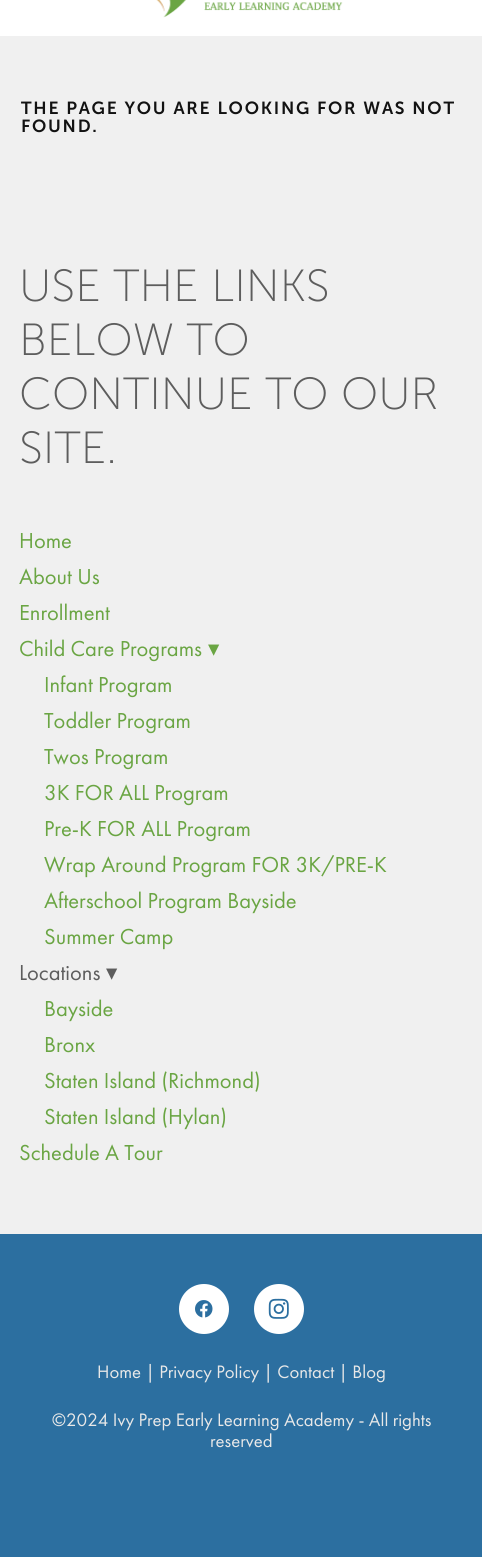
#include <cairo.h>
#include <math.h>
#include <stddef.h>

typedef struct { const char *family; double size; int italic, bold; unsigned color; } style_t;
static cairo_t *ctx;

static void ink(unsigned color) {
    cairo_set_source_rgb(ctx, (color >> 16) / 255.0, (color >> 8 & 255) / 255.0, (color & 255) / 255.0);
}

static void write(double x, double y, const char *s, const style_t *st) {
    cairo_select_font_face(ctx, st->family, st->italic ? CAIRO_FONT_SLANT_ITALIC : CAIRO_FONT_SLANT_NORMAL,
        st->bold ? CAIRO_FONT_WEIGHT_BOLD : CAIRO_FONT_WEIGHT_NORMAL);
    cairo_set_font_size(ctx, st->size);
    ink(st->color);
    cairo_move_to(ctx, x, y);
    cairo_show_text(ctx, s);
}

static void write_spaced(double x, double y, const char *s, double letter, double word) {
    cairo_move_to(ctx, x, y);
    while (*s) {
        char ch[5] = {0};
        int n = 0;
        do ch[n++] = *s++; while ((*s & 0xC0) == 0x80);
        cairo_show_text(ctx, ch);
        cairo_rel_move_to(ctx, letter + word * (*ch == ' '), 0);
    }
}

static void block(double x, double y, double w, double h, unsigned color) {
    ink(color);
    cairo_rectangle(ctx, x, y, w, h);
    cairo_fill(ctx);
}

static void paste(const char *path, double x, double y, double w, double h) {
    cairo_surface_t *image = cairo_image_surface_create_from_png(path);
    cairo_save(ctx);
    cairo_set_source_surface(ctx, image, x, y);
    cairo_rectangle(ctx, x, y, w, h);
    cairo_fill(ctx);
    cairo_restore(ctx);
    cairo_surface_destroy(image);
}

static const style_t s1 = {"Museo Sans Light", 45, 0, 0, 0x5d5d5d};
static const style_t s2 = {"Futura PT", 22.5, 0, 0, 0x6aa543};
static const style_t s3 = {"DejaVu Sans", 22.5, 0, 0, 0x6aa543};
static const style_t s4 = {"Futura PT", 22.5, 0, 0, 0x5d5d5d};
static const style_t s5 = {"DejaVu Sans", 22.5, 0, 0, 0x5d5d5d};
static const style_t s6 = {"Futura PT", 18.75, 0, 0, 0xe8e8e8};

int main(void) {
    cairo_surface_t *surface = cairo_image_surface_create(CAIRO_FORMAT_RGB24, 482, 1557);
    ctx = cairo_create(surface);
    cairo_font_options_t *options = cairo_font_options_create();
    cairo_font_options_set_hint_metrics(options, CAIRO_HINT_METRICS_OFF);
    cairo_font_options_set_hint_style(options, CAIRO_HINT_STYLE_NONE);
    cairo_set_font_options(ctx, options);
    cairo_set_miter_limit(ctx, 4);
    ink(0xf0f0f0);
    cairo_paint(ctx);
    block(0, 0, 482, 36, 0xffffff);
    paste("pic1.png", 156, 0, 187, 18);
    cairo_select_font_face(ctx, "Museo Sans SemiBold", CAIRO_FONT_SLANT_NORMAL, CAIRO_FONT_WEIGHT_NORMAL);
    cairo_set_font_size(ctx, 17.5);
    ink(0x121212);
    write_spaced(21, 114, "THE PAGE YOU ARE LOOKING FOR WAS NOT", 1.75, 0);
    write_spaced(21, 132, "FOUND.", 1.75, 0);
    write(19, 301, "USE THE LINKS", &s1);
    write(19, 355, "BELOW TO", &s1);
    write(19, 409, "CONTINUE TO OUR", &s1);
    write(19, 463, "SITE.", &s1);
    write(19, 548, "Home", &s2);
    write(19, 584, "About Us", &s2);
    write(19, 620, "Enrollment", &s2);
    write(19, 656, "Child Care Programs", &s2);
    write(208, 656, "▾", &s3);
    write(44, 692, "Infant Program", &s2);
    write(44, 728, "Toddler Program", &s2);
    write(44, 764, "Twos Program", &s2);
    write(44, 800, "3K FOR ALL Program", &s2);
    write(44, 836, "Pre-K FOR ALL Program", &s2);
    write(44, 872, "Wrap Around Program FOR 3K/PRE-K", &s2);
    write(44, 908, "Afterschool Program Bayside", &s2);
    write(44, 944, "Summer Camp", &s2);
    write(19, 980, "Locations", &s4);
    write(106, 980, "▾", &s5);
    write(44, 1016, "Bayside", &s2);
    write(44, 1052, "Bronx", &s2);
    write(44, 1088, "Staten Island (Richmond)", &s2);
    write(44, 1124, "Staten Island (Hylan)", &s2);
    write(19, 1160, "Schedule A Tour", &s2);
    block(0, 1234, 482, 323, 0x2c6fa0);
    ink(0xffffff);
    cairo_new_path(ctx);
    cairo_arc(ctx, 204, 1309, 25, 0, 2 * M_PI);
    cairo_fill(ctx);
    paste("pic2.png", 195, 1300, 18, 18);
    cairo_arc(ctx, 279, 1309, 25, 0, 2 * M_PI);
    cairo_fill(ctx);
    paste("pic3.png", 268, 1298, 21, 21);
    write(97, 1378, "Home | Privacy Policy | Contact | Blog", &s6);
    write(52, 1426, "©2024 Ivy Prep Early Learning Academy - All rights", &s6);
    write(210, 1447, "reserved", &s6);
    cairo_surface_write_to_png(surface, "screenshot.png");
    cairo_font_options_destroy(options);
    cairo_destroy(ctx);
    cairo_surface_destroy(surface);
    return 0;
}
